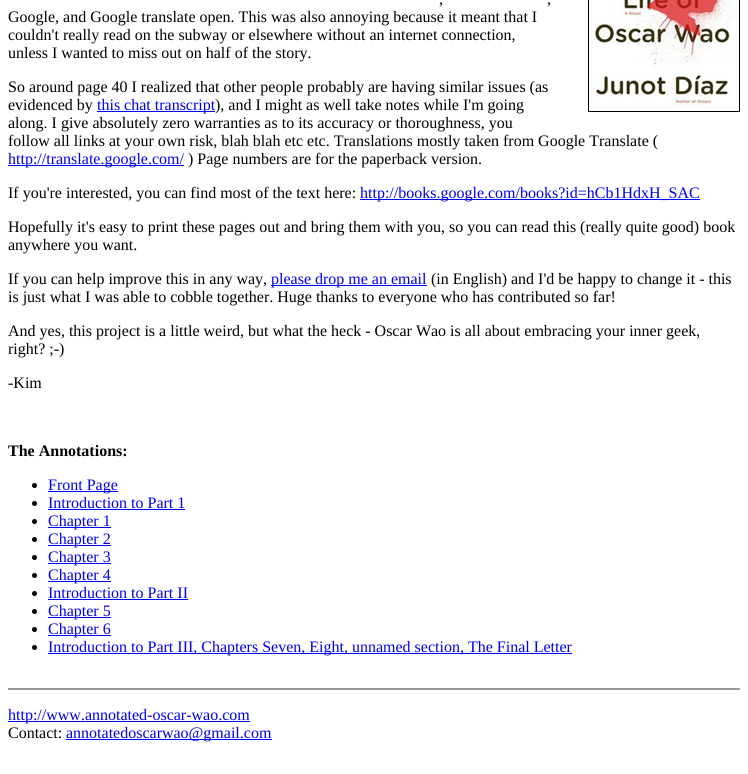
#include <cairo.h>
#include <math.h>
#include <stddef.h>

typedef struct { const char *family; double size; int italic, bold; unsigned color; } style_t;
static cairo_t *ctx;

static void ink(unsigned color) {
    cairo_set_source_rgb(ctx, (color >> 16) / 255.0, (color >> 8 & 255) / 255.0, (color & 255) / 255.0);
}

static void write(double x, double y, const char *s, const style_t *st) {
    cairo_select_font_face(ctx, st->family, st->italic ? CAIRO_FONT_SLANT_ITALIC : CAIRO_FONT_SLANT_NORMAL,
        st->bold ? CAIRO_FONT_WEIGHT_BOLD : CAIRO_FONT_WEIGHT_NORMAL);
    cairo_set_font_size(ctx, st->size);
    ink(st->color);
    cairo_move_to(ctx, x, y);
    cairo_show_text(ctx, s);
}

static void block(double x, double y, double w, double h, unsigned color) {
    ink(color);
    cairo_rectangle(ctx, x, y, w, h);
    cairo_fill(ctx);
}

static void paste(const char *path, double x, double y, double w, double h) {
    cairo_surface_t *image = cairo_image_surface_create_from_png(path);
    cairo_save(ctx);
    cairo_set_source_surface(ctx, image, x, y);
    cairo_rectangle(ctx, x, y, w, h);
    cairo_fill(ctx);
    cairo_restore(ctx);
    cairo_surface_destroy(image);
}

static const style_t s1 = {"Liberation Serif", 16, 0, 0, 0x000000};
static const style_t s2 = {"Liberation Serif", 16, 0, 0, 0x0000ee};
static const style_t s3 = {"Liberation Serif", 16, 0, 1, 0x000000};

int main(void) {
    cairo_surface_t *surface = cairo_image_surface_create(CAIRO_FORMAT_RGB24, 748, 774);
    ctx = cairo_create(surface);
    cairo_font_options_t *options = cairo_font_options_create();
    cairo_font_options_set_hint_metrics(options, CAIRO_HINT_METRICS_OFF);
    cairo_font_options_set_hint_style(options, CAIRO_HINT_STYLE_NONE);
    cairo_set_font_options(ctx, options);
    cairo_set_miter_limit(ctx, 4);
    ink(0xffffff);
    cairo_paint(ctx);
    write(439, 4, ",", &s1);
    write(547, 4, ",", &s1);
    write(8, 22, "Google, and Google translate open. This was also annoying because it meant that I", &s1);
    write(8, 40, "couldn't really read on the subway or elsewhere without an internet connection,", &s1);
    write(8, 58, "unless I wanted to miss out on half of the story.", &s1);
    cairo_rectangle(ctx, 588.5, -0.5, 151, 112);
    cairo_set_line_width(ctx, 1);
    cairo_stroke(ctx);
    paste("pic1.png", 589, 0, 146, 105);
    write(8, 92, "So around page 40 I realized that other people probably are having similar issues (as", &s1);
    write(8, 110, "evidenced by", &s1);
    block(97, 111, 118, 1, 0x0000ee);
    write(97, 110, "this chat transcript", &s2);
    write(215, 110, "), and I might as well take notes while I'm going", &s1);
    write(8, 128, "along. I give absolutely zero warranties as to its accuracy or thoroughness, you", &s1);
    write(8, 146, "follow all links at your own risk, blah blah etc etc. Translations mostly taken from Google Translate (", &s1);
    block(8, 165, 176, 1, 0x0000ee);
    write(8, 164, "http://translate.google.com/", &s2);
    write(188, 164, ") Page numbers are for the paperback version.", &s1);
    write(8, 198, "If you're interested, you can find most of the text here:", &s1);
    block(360, 199, 340, 1, 0x0000ee);
    write(360, 198, "http://books.google.com/books?id=hCb1HdxH_SAC", &s2);
    write(8, 232, "Hopefully it's easy to print these pages out and bring them with you, so you can read this (really quite good) book", &s1);
    write(8, 250, "anywhere you want.", &s1);
    write(8, 284, "If you can help improve this in any way,", &s1);
    block(271, 285, 156, 1, 0x0000ee);
    write(271, 284, "please drop me an email", &s2);
    write(431, 284, "(in English) and I'd be happy to change it - this", &s1);
    write(8, 302, "is just what I was able to cobble together. Huge thanks to everyone who has contributed so far!", &s1);
    write(8, 336, "And yes, this project is a little weird, but what the heck - Oscar Wao is all about embracing your inner geek,", &s1);
    write(8, 354, "right? ;-)", &s1);
    write(8, 388, "-Kim", &s1);
    write(8, 456, "The Annotations:", &s3);
    cairo_new_path(ctx);
    cairo_arc(ctx, 34.5, 485.5, 2.5, 0, 2 * M_PI);
    cairo_fill(ctx);
    block(48, 491, 70, 1, 0x0000ee);
    write(48, 490, "Front Page", &s2);
    ink(0x000000);
    cairo_new_path(ctx);
    cairo_arc(ctx, 34.5, 503.5, 2.5, 0, 2 * M_PI);
    cairo_fill(ctx);
    write(48, 508, "Introduction to Part 1", &s2);
    block(48, 509, 137, 1, 0x0000ee);
    ink(0x000000);
    cairo_new_path(ctx);
    cairo_arc(ctx, 34.5, 521.5, 2.5, 0, 2 * M_PI);
    cairo_fill(ctx);
    block(48, 527, 63, 1, 0x0000ee);
    write(48, 526, "Chapter 1", &s2);
    ink(0x000000);
    cairo_new_path(ctx);
    cairo_arc(ctx, 34.5, 539.5, 2.5, 0, 2 * M_PI);
    cairo_fill(ctx);
    block(48, 545, 63, 1, 0x0000ee);
    write(48, 544, "Chapter 2", &s2);
    ink(0x000000);
    cairo_new_path(ctx);
    cairo_arc(ctx, 34.5, 557.5, 2.5, 0, 2 * M_PI);
    cairo_fill(ctx);
    block(48, 563, 63, 1, 0x0000ee);
    write(48, 562, "Chapter 3", &s2);
    ink(0x000000);
    cairo_new_path(ctx);
    cairo_arc(ctx, 34.5, 575.5, 2.5, 0, 2 * M_PI);
    cairo_fill(ctx);
    block(48, 581, 63, 1, 0x0000ee);
    write(48, 580, "Chapter 4", &s2);
    ink(0x000000);
    cairo_new_path(ctx);
    cairo_arc(ctx, 34.5, 593.5, 2.5, 0, 2 * M_PI);
    cairo_fill(ctx);
    write(48, 598, "Introduction to Part II", &s2);
    block(48, 599, 140, 1, 0x0000ee);
    ink(0x000000);
    cairo_new_path(ctx);
    cairo_arc(ctx, 34.5, 611.5, 2.5, 0, 2 * M_PI);
    cairo_fill(ctx);
    block(48, 617, 63, 1, 0x0000ee);
    write(48, 616, "Chapter 5", &s2);
    ink(0x000000);
    cairo_new_path(ctx);
    cairo_arc(ctx, 34.5, 629.5, 2.5, 0, 2 * M_PI);
    cairo_fill(ctx);
    block(48, 635, 63, 1, 0x0000ee);
    write(48, 634, "Chapter 6", &s2);
    ink(0x000000);
    cairo_new_path(ctx);
    cairo_arc(ctx, 34.5, 647.5, 2.5, 0, 2 * M_PI);
    cairo_fill(ctx);
    block(48, 653, 524, 1, 0x0000ee);
    write(48, 652, "Introduction to Part III, Chapters Seven, Eight, unnamed section, The Final Letter", &s2);
    block(8, 688, 732, 2, 0x999999);
    block(8, 721, 242, 1, 0x0000ee);
    write(8, 720, "http://www.annotated-oscar-wao.com", &s2);
    write(8, 738, "Contact:", &s1);
    block(66, 739, 206, 1, 0x0000ee);
    write(66, 738, "annotatedoscarwao@gmail.com", &s2);
    cairo_surface_write_to_png(surface, "screenshot.png");
    cairo_font_options_destroy(options);
    cairo_destroy(ctx);
    cairo_surface_destroy(surface);
    return 0;
}
